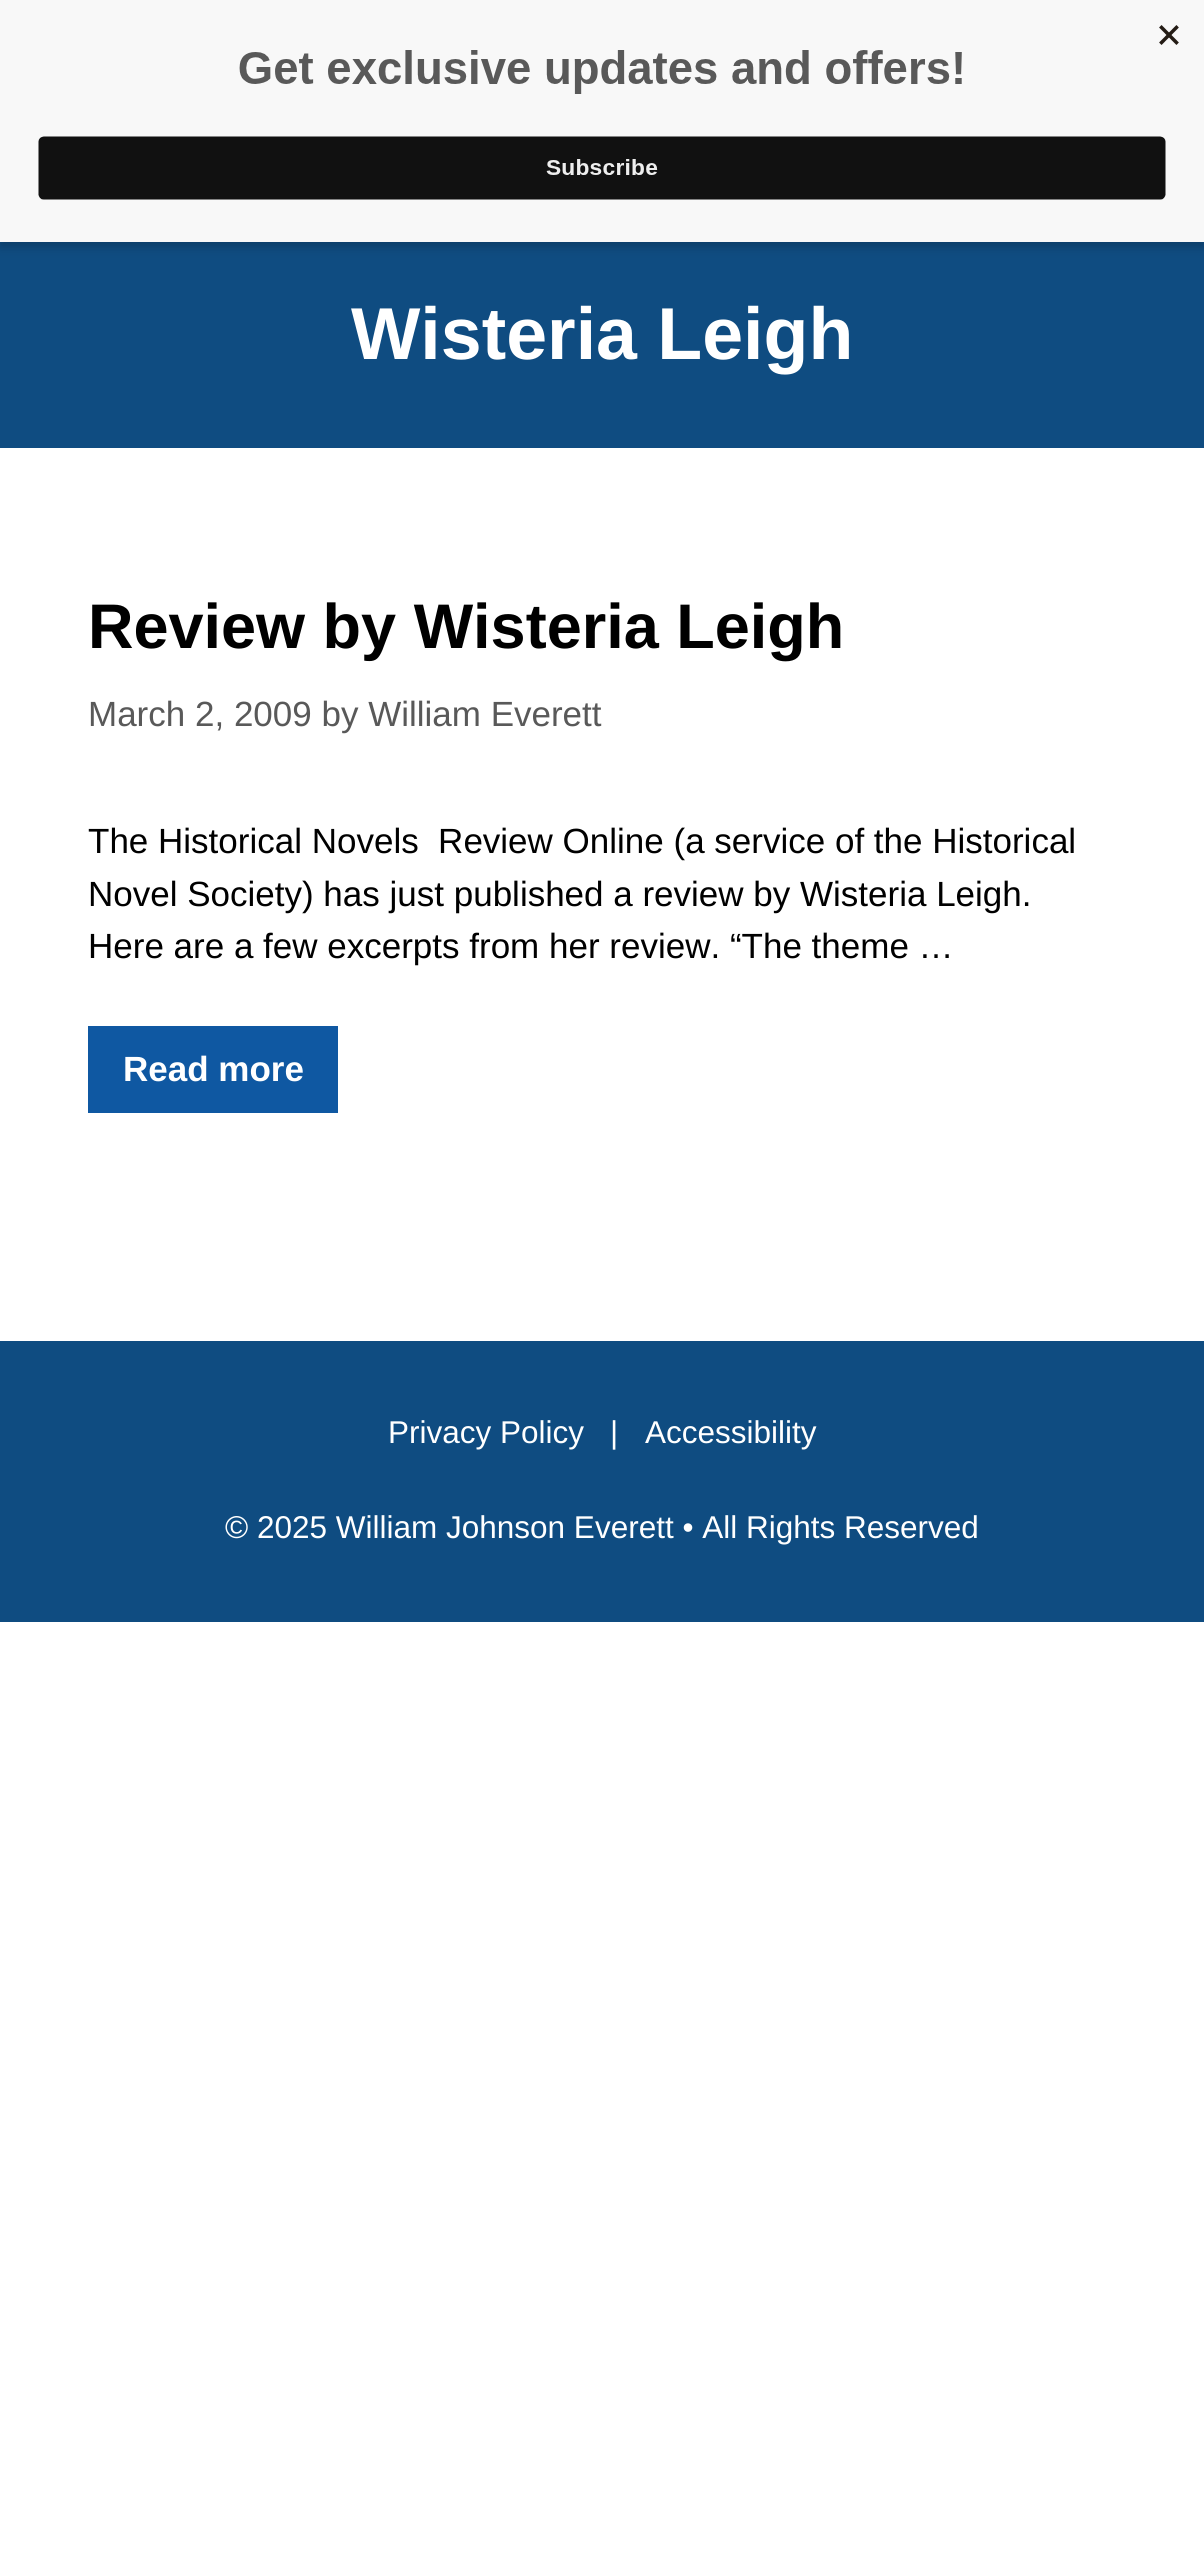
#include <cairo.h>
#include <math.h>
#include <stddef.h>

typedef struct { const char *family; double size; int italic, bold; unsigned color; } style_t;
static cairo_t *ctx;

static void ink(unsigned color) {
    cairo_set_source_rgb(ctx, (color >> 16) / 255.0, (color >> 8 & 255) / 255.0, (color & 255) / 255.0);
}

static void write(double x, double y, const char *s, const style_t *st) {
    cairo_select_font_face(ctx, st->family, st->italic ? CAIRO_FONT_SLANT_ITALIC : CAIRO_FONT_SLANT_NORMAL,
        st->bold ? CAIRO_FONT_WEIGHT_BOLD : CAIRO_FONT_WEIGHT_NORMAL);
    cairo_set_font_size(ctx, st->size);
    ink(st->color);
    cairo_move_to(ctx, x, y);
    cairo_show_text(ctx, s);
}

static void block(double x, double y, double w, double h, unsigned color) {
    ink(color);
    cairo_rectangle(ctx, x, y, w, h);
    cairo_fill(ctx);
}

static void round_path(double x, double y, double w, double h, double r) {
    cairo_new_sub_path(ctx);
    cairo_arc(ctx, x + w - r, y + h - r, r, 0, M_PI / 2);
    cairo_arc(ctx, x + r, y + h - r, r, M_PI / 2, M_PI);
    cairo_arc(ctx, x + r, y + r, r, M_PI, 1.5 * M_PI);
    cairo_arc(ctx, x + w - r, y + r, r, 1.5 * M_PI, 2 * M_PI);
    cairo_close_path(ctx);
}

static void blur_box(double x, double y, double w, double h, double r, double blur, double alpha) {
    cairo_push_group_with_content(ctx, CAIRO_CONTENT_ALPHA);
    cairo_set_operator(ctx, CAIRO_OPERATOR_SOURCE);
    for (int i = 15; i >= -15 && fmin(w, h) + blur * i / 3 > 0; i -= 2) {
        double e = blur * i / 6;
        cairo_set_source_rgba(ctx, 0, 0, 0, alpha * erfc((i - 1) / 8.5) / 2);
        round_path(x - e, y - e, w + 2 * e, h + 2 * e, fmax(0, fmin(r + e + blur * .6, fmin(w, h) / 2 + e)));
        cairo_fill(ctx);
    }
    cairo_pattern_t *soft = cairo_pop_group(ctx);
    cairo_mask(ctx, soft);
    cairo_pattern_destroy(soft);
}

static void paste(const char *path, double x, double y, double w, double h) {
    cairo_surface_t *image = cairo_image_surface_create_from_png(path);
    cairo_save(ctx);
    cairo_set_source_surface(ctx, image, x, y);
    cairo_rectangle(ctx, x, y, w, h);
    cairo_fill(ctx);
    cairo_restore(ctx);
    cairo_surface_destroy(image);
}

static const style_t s1 = {"Liberation Sans", 73.5, 0, 1, 0xffffff};
static const style_t s2 = {"Liberation Sans", 63, 0, 1, 0x000000};
static const style_t s3 = {"Liberation Sans", 35, 0, 0, 0x595959};
static const style_t s4 = {"Liberation Sans", 35, 0, 0, 0x000000};
static const style_t s5 = {"Liberation Sans", 35, 0, 1, 0xffffff};
static const style_t s6 = {"Liberation Sans", 31.5, 0, 0, 0xffffff};

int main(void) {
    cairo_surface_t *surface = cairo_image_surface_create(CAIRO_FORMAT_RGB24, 1204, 2562);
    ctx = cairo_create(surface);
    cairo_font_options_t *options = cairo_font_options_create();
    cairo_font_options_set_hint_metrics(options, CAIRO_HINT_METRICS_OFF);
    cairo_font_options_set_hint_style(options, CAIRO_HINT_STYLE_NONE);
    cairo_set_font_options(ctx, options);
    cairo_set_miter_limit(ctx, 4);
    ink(0xffffff);
    cairo_paint(ctx);
    block(0, 242, 1204, 206, 0x0f4c81);
    ink(0x000000);
    blur_box(0, 5, 1204, 242, 0, 5, 0.2);
    paste("pic1.png", 0, 0, 1204, 242);
    write(351, 359, "Wisteria Leigh", &s1);
    write(88, 648, "Review by Wisteria Leigh", &s2);
    write(88, 726, "March 2, 2009 by William Everett", &s3);
    write(88, 853, "The Historical Novels  Review Online (a service of the Historical", &s4);
    write(88, 906, "Novel Society) has just published a review by Wisteria Leigh.", &s4);
    write(88, 958, "Here are a few excerpts from her review. “The theme …", &s4);
    block(88, 1026, 250, 87, 0x0f58a2);
    write(123, 1081, "Read more", &s5);
    block(0, 1341, 1204, 281, 0x0f4c81);
    write(388, 1443, "Privacy Policy", &s6);
    write(610, 1443, "|", &s6);
    write(645, 1443, "Accessibility", &s6);
    write(225, 1538, "© 2025 William Johnson Everett • All Rights Reserved", &s6);
    cairo_surface_write_to_png(surface, "screenshot.png");
    cairo_font_options_destroy(options);
    cairo_destroy(ctx);
    cairo_surface_destroy(surface);
    return 0;
}
